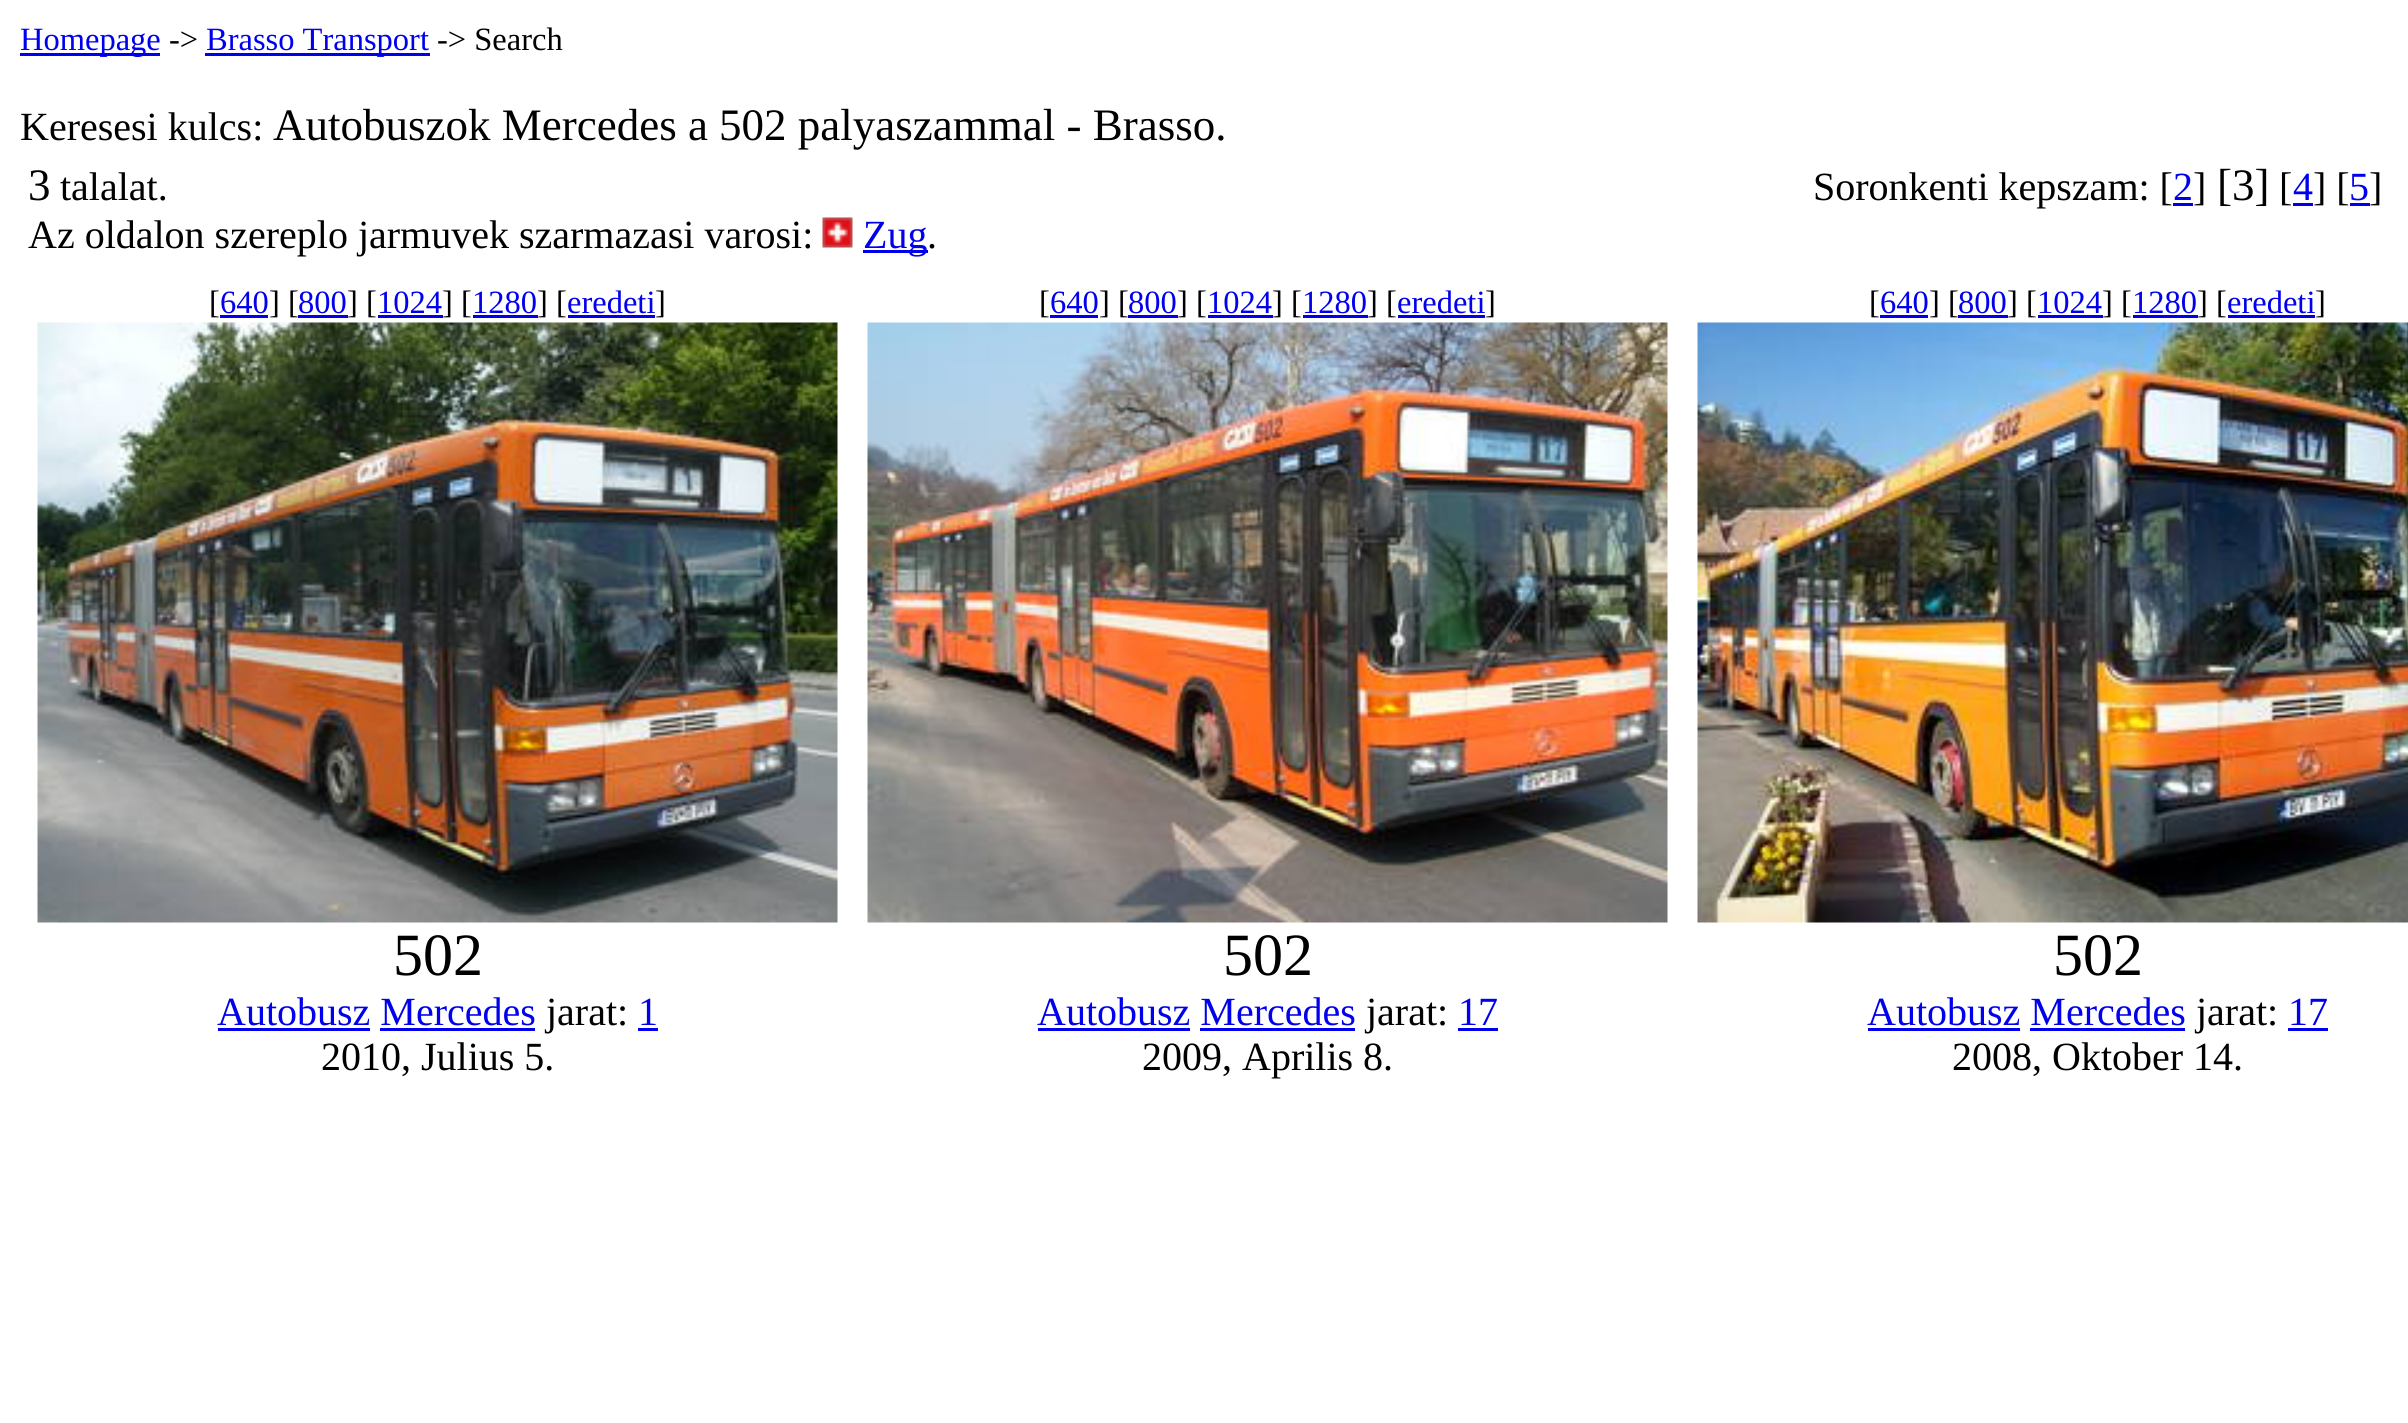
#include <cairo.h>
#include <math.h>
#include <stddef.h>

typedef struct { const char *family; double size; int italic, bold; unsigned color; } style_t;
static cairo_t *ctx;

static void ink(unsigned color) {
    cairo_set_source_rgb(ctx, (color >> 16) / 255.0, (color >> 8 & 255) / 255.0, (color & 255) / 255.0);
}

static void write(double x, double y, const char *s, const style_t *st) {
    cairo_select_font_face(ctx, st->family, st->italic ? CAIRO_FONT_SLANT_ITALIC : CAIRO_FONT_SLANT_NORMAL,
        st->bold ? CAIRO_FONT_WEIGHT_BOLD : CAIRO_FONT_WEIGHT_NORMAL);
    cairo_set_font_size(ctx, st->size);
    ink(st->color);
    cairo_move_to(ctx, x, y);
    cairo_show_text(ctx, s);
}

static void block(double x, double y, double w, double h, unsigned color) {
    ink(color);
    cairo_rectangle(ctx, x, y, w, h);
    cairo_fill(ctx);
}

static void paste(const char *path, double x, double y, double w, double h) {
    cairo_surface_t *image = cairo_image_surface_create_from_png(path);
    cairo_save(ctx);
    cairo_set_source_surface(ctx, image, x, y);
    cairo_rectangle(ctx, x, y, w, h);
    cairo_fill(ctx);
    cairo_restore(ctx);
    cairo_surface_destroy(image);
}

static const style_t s1 = {"Liberation Serif", 32.5, 0, 0, 0x0000ee};
static const style_t s2 = {"Liberation Serif", 32.5, 0, 0, 0x000000};
static const style_t s3 = {"Liberation Serif", 40, 0, 0, 0x000000};
static const style_t s4 = {"Liberation Serif", 45, 0, 0, 0x000000};
static const style_t s5 = {"Liberation Serif", 40, 0, 0, 0x0000ee};
static const style_t s6 = {"Liberation Serif", 60, 0, 0, 0x000000};

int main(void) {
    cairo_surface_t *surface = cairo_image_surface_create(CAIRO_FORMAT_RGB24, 2408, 1423);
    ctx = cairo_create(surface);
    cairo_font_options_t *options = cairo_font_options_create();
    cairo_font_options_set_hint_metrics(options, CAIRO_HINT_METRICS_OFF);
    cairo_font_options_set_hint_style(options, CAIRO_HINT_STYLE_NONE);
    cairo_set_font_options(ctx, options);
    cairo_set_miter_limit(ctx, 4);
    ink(0xffffff);
    cairo_paint(ctx);
    block(20, 53, 140, 3, 0x0000ee);
    write(20, 50, "Homepage", &s1);
    write(169, 50, "->", &s2);
    block(205, 53, 225, 3, 0x0000ee);
    write(206, 50, "Brasso Transport", &s1);
    write(437, 50, "-> Search", &s2);
    write(20, 140, "Keresesi kulcs:", &s3);
    write(273, 140, "Autobuszok Mercedes a 502 palyaszammal - Brasso.", &s4);
    write(28, 200, "3", &s4);
    write(60, 200, "talalat.", &s3);
    write(28, 248, "Az oldalon szereplo jarmuvek szarmazasi varosi:", &s3);
    paste("pic1.png", 822, 217, 31, 31);
    block(863, 250, 65, 3, 0x0000ee);
    write(863, 248, "Zug", &s5);
    write(927, 248, ".", &s3);
    write(1813, 200, "Soronkenti kepszam: [", &s3);
    write(2173, 200, "2", &s5);
    block(2173, 203, 20, 3, 0x0000ee);
    write(2193, 200, "]", &s3);
    write(2217, 200, "[3]", &s4);
    write(2279, 200, "[", &s3);
    write(2293, 200, "4", &s5);
    block(2293, 203, 20, 3, 0x0000ee);
    write(2313, 200, "] [", &s3);
    write(2349, 200, "5", &s5);
    block(2350, 203, 20, 3, 0x0000ee);
    write(2369, 200, "]", &s3);
    write(209, 313, "[", &s2);
    block(220, 315, 48, 3, 0x0000ee);
    write(220, 313, "640", &s1);
    write(269, 313, "] [", &s2);
    block(298, 315, 50, 3, 0x0000ee);
    write(298, 313, "800", &s1);
    write(347, 313, "] [", &s2);
    write(377, 313, "1024", &s1);
    write(442, 313, "] [", &s2);
    block(378, 315, 65, 3, 0x0000ee);
    write(472, 313, "1280", &s1);
    write(537, 313, "] [", &s2);
    block(473, 315, 65, 3, 0x0000ee);
    write(567, 313, "eredeti", &s1);
    write(655, 313, "]", &s2);
    block(568, 315, 87, 3, 0x0000ee);
    paste("pic2.png", 37, 322, 801, 601);
    write(393, 975, "502", &s6);
    write(217, 1025, "Autobusz Mercedes", &s5);
    block(218, 1028, 152, 3, 0x0000ee);
    write(546, 1025, "jarat:", &s3);
    write(638, 1025, "1", &s5);
    block(638, 1028, 20, 3, 0x0000ee);
    block(380, 1028, 155, 3, 0x0000ee);
    write(321, 1070, "2010, Julius 5.", &s3);
    write(1039, 313, "[", &s2);
    block(1050, 315, 48, 3, 0x0000ee);
    write(1050, 313, "640", &s1);
    write(1099, 313, "] [", &s2);
    block(1128, 315, 50, 3, 0x0000ee);
    write(1128, 313, "800", &s1);
    write(1177, 313, "] [", &s2);
    write(1207, 313, "1024", &s1);
    write(1272, 313, "] [", &s2);
    block(1208, 315, 65, 3, 0x0000ee);
    write(1302, 313, "1280", &s1);
    write(1367, 313, "] [", &s2);
    block(1303, 315, 65, 3, 0x0000ee);
    write(1397, 313, "eredeti", &s1);
    write(1485, 313, "]", &s2);
    block(1398, 315, 87, 3, 0x0000ee);
    paste("pic3.png", 867, 322, 801, 601);
    write(1223, 975, "502", &s6);
    write(1037, 1025, "Autobusz Mercedes", &s5);
    block(1038, 1028, 152, 3, 0x0000ee);
    write(1366, 1025, "jarat:", &s3);
    write(1458, 1025, "17", &s5);
    block(1458, 1028, 40, 3, 0x0000ee);
    block(1200, 1028, 155, 3, 0x0000ee);
    write(1142, 1070, "2009, Aprilis 8.", &s3);
    write(1869, 313, "[", &s2);
    block(1880, 315, 48, 3, 0x0000ee);
    write(1880, 313, "640", &s1);
    write(1929, 313, "] [", &s2);
    block(1958, 315, 50, 3, 0x0000ee);
    write(1958, 313, "800", &s1);
    write(2007, 313, "] [", &s2);
    write(2037, 313, "1024", &s1);
    write(2102, 313, "] [", &s2);
    block(2038, 315, 65, 3, 0x0000ee);
    write(2132, 313, "1280", &s1);
    write(2197, 313, "] [", &s2);
    block(2133, 315, 65, 3, 0x0000ee);
    write(2227, 313, "eredeti", &s1);
    write(2315, 313, "]", &s2);
    block(2228, 315, 87, 3, 0x0000ee);
    paste("pic4.png", 1697, 322, 711, 601);
    write(2053, 975, "502", &s6);
    write(1867, 1025, "Autobusz Mercedes", &s5);
    block(1868, 1028, 152, 3, 0x0000ee);
    write(2196, 1025, "jarat:", &s3);
    write(2288, 1025, "17", &s5);
    block(2288, 1028, 40, 3, 0x0000ee);
    block(2030, 1028, 155, 3, 0x0000ee);
    write(1952, 1070, "2008, Oktober 14.", &s3);
    cairo_surface_write_to_png(surface, "screenshot.png");
    cairo_font_options_destroy(options);
    cairo_destroy(ctx);
    cairo_surface_destroy(surface);
    return 0;
}
